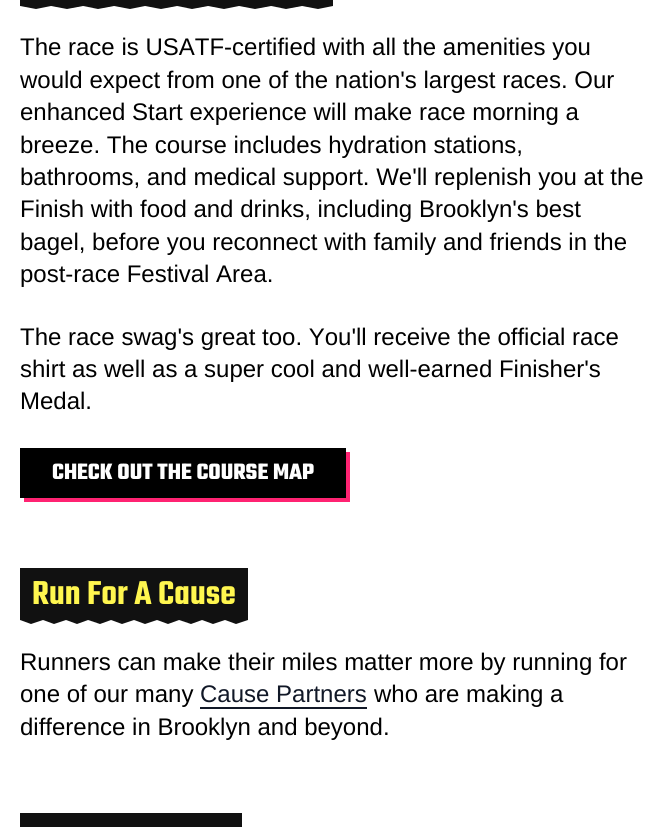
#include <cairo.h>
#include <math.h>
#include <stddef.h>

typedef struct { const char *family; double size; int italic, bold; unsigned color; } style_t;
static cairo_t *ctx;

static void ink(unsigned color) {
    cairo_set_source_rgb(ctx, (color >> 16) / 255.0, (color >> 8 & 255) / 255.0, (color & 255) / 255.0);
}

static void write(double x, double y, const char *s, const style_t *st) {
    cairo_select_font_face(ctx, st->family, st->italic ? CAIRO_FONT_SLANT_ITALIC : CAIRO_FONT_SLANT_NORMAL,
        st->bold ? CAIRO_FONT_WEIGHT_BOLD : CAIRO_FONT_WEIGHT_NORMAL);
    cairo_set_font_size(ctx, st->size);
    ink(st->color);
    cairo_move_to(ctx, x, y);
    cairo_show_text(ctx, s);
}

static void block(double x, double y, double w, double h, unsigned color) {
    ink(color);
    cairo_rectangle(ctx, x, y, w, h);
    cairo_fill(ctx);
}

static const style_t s1 = {"Liberation Sans", 24, 0, 0, 0x000000};
static const style_t s2 = {"Teko", 24, 0, 1, 0xffffff};
static const style_t s3 = {"Teko SemiBold", 36, 0, 0, 0xfff64f};
static const style_t s4 = {"Liberation Sans", 24, 0, 0, 0x111827};

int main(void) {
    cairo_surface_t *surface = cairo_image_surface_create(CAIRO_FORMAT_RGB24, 665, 827);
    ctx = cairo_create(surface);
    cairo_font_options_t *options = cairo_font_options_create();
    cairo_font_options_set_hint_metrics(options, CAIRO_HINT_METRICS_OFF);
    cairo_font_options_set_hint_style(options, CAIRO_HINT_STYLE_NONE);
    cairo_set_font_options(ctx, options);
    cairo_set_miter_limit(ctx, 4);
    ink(0xffffff);
    cairo_paint(ctx);
    ink(0x111111);
    cairo_new_path(ctx);
    cairo_move_to(ctx, 20, -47);
    cairo_line_to(ctx, 20, 6);
    cairo_line_to(ctx, 36, 9);
    cairo_line_to(ctx, 51, 6);
    cairo_line_to(ctx, 67, 9);
    cairo_line_to(ctx, 83, 6);
    cairo_line_to(ctx, 98, 9);
    cairo_line_to(ctx, 114, 6);
    cairo_line_to(ctx, 130, 9);
    cairo_line_to(ctx, 145, 6);
    cairo_line_to(ctx, 161, 9);
    cairo_line_to(ctx, 177, 6);
    cairo_line_to(ctx, 192, 9);
    cairo_line_to(ctx, 208, 6);
    cairo_line_to(ctx, 224, 9);
    cairo_line_to(ctx, 239, 6);
    cairo_line_to(ctx, 255, 9);
    cairo_line_to(ctx, 271, 6);
    cairo_line_to(ctx, 286, 9);
    cairo_line_to(ctx, 302, 6);
    cairo_line_to(ctx, 318, 9);
    cairo_line_to(ctx, 333, 6);
    cairo_line_to(ctx, 333, -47);
    cairo_close_path(ctx);
    cairo_fill(ctx);
    write(20, 55, "The race is USATF-certified with all the amenities you", &s1);
    write(20, 88, "would expect from one of the nation's largest races. Our", &s1);
    write(20, 120, "enhanced Start experience will make race morning a", &s1);
    write(20, 153, "breeze. The course includes hydration stations,", &s1);
    write(20, 185, "bathrooms, and medical support. We'll replenish you at the", &s1);
    write(20, 217, "Finish with food and drinks, including Brooklyn's best", &s1);
    write(20, 250, "bagel, before you reconnect with family and friends in the", &s1);
    write(20, 282, "post-race Festival Area.", &s1);
    write(20, 345, "The race swag's great too. You'll receive the official race", &s1);
    write(20, 377, "shirt as well as a super cool and well-earned Finisher's", &s1);
    write(20, 409, "Medal.", &s1);
    ink(0xff2372);
    cairo_new_path(ctx);
    cairo_move_to(ctx, 24, 498);
    cairo_line_to(ctx, 24, 502);
    cairo_line_to(ctx, 350, 502);
    cairo_line_to(ctx, 350, 452);
    cairo_line_to(ctx, 346, 452);
    cairo_line_to(ctx, 346, 498);
    cairo_close_path(ctx);
    cairo_fill(ctx);
    block(20, 448, 326, 50, 0x000000);
    write(52, 479, "CHECK OUT THE COURSE MAP", &s2);
    ink(0x111111);
    cairo_new_path(ctx);
    cairo_move_to(ctx, 20, 568);
    cairo_line_to(ctx, 20, 620);
    cairo_line_to(ctx, 31, 624);
    cairo_line_to(ctx, 43, 620);
    cairo_line_to(ctx, 54, 624);
    cairo_line_to(ctx, 66, 620);
    cairo_line_to(ctx, 77, 624);
    cairo_line_to(ctx, 88, 620);
    cairo_line_to(ctx, 100, 624);
    cairo_line_to(ctx, 111, 620);
    cairo_line_to(ctx, 122, 624);
    cairo_line_to(ctx, 134, 620);
    cairo_line_to(ctx, 145, 624);
    cairo_line_to(ctx, 157, 620);
    cairo_line_to(ctx, 168, 624);
    cairo_line_to(ctx, 179, 620);
    cairo_line_to(ctx, 191, 624);
    cairo_line_to(ctx, 202, 620);
    cairo_line_to(ctx, 213, 624);
    cairo_line_to(ctx, 225, 620);
    cairo_line_to(ctx, 236, 624);
    cairo_line_to(ctx, 248, 620);
    cairo_line_to(ctx, 248, 568);
    cairo_close_path(ctx);
    cairo_fill(ctx);
    write(32, 604, "Run For A Cause", &s3);
    write(20, 670, "Runners can make their miles matter more by running for", &s1);
    write(20, 702, "one of our many", &s1);
    write(200, 702, "Cause Partners", &s4);
    block(200, 707, 167, 2, 0x111827);
    write(374, 702, "who are making a", &s1);
    write(20, 735, "difference in Brooklyn and beyond.", &s1);
    ink(0x111111);
    cairo_new_path(ctx);
    cairo_move_to(ctx, 20, 813);
    cairo_line_to(ctx, 20, 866);
    cairo_line_to(ctx, 31, 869);
    cairo_line_to(ctx, 42, 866);
    cairo_line_to(ctx, 53, 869);
    cairo_line_to(ctx, 64, 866);
    cairo_line_to(ctx, 75, 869);
    cairo_line_to(ctx, 86, 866);
    cairo_line_to(ctx, 98, 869);
    cairo_line_to(ctx, 109, 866);
    cairo_line_to(ctx, 120, 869);
    cairo_line_to(ctx, 131, 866);
    cairo_line_to(ctx, 142, 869);
    cairo_line_to(ctx, 153, 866);
    cairo_line_to(ctx, 164, 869);
    cairo_line_to(ctx, 175, 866);
    cairo_line_to(ctx, 186, 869);
    cairo_line_to(ctx, 197, 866);
    cairo_line_to(ctx, 208, 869);
    cairo_line_to(ctx, 219, 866);
    cairo_line_to(ctx, 230, 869);
    cairo_line_to(ctx, 242, 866);
    cairo_line_to(ctx, 242, 813);
    cairo_close_path(ctx);
    cairo_fill(ctx);
    cairo_surface_write_to_png(surface, "screenshot.png");
    cairo_font_options_destroy(options);
    cairo_destroy(ctx);
    cairo_surface_destroy(surface);
    return 0;
}
